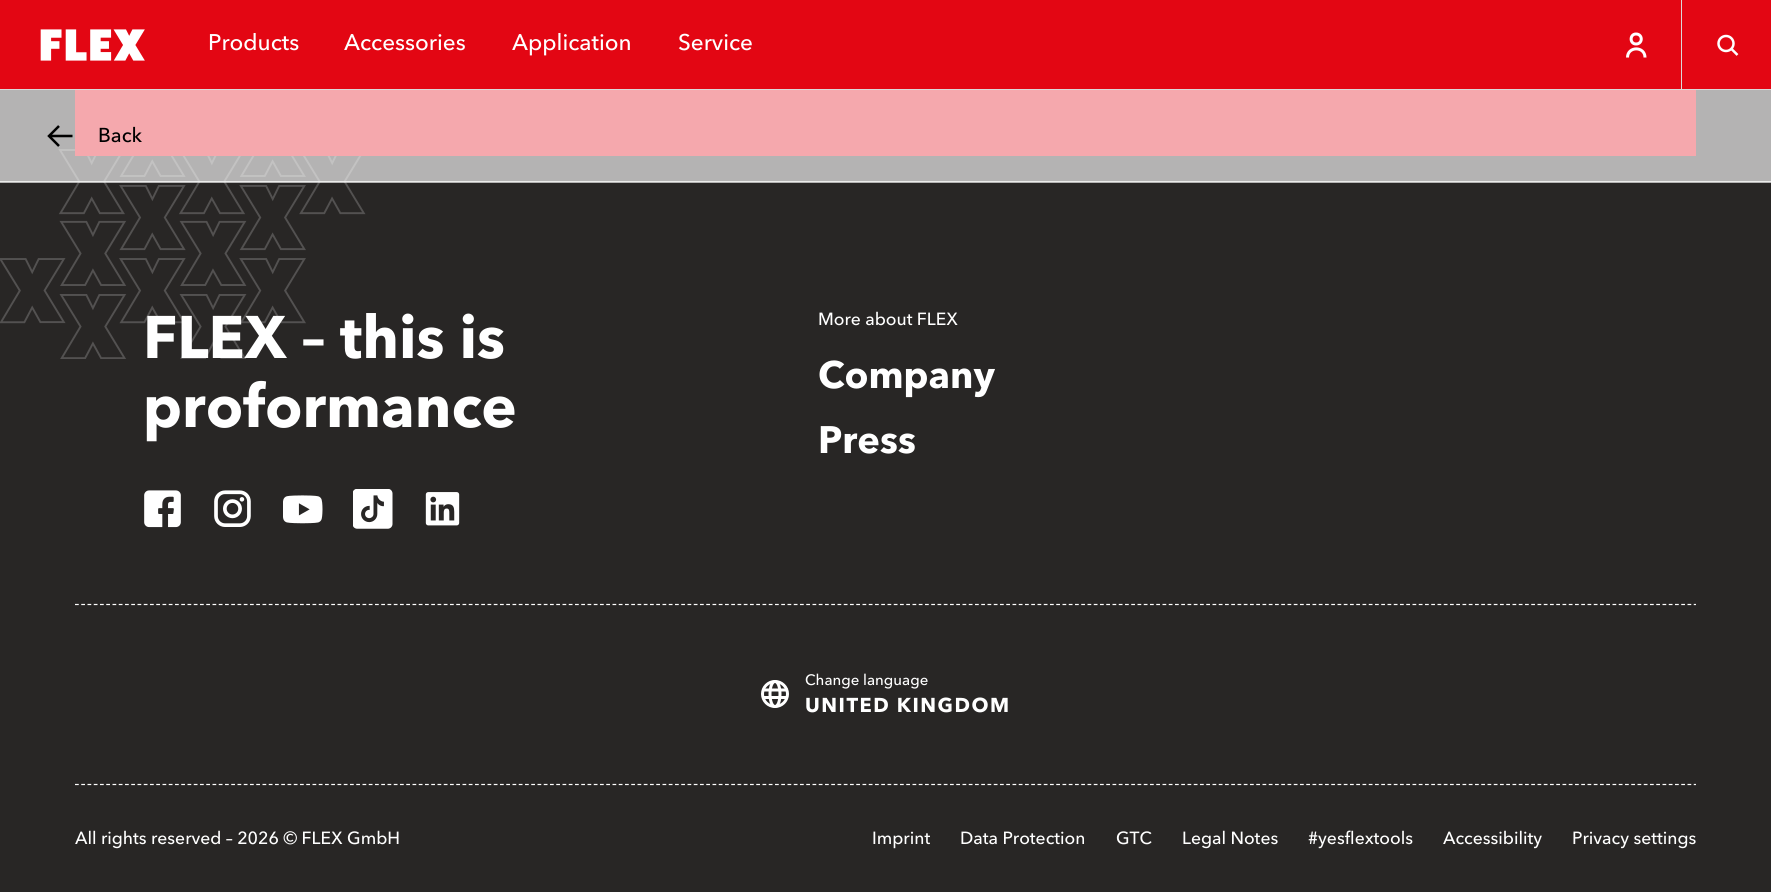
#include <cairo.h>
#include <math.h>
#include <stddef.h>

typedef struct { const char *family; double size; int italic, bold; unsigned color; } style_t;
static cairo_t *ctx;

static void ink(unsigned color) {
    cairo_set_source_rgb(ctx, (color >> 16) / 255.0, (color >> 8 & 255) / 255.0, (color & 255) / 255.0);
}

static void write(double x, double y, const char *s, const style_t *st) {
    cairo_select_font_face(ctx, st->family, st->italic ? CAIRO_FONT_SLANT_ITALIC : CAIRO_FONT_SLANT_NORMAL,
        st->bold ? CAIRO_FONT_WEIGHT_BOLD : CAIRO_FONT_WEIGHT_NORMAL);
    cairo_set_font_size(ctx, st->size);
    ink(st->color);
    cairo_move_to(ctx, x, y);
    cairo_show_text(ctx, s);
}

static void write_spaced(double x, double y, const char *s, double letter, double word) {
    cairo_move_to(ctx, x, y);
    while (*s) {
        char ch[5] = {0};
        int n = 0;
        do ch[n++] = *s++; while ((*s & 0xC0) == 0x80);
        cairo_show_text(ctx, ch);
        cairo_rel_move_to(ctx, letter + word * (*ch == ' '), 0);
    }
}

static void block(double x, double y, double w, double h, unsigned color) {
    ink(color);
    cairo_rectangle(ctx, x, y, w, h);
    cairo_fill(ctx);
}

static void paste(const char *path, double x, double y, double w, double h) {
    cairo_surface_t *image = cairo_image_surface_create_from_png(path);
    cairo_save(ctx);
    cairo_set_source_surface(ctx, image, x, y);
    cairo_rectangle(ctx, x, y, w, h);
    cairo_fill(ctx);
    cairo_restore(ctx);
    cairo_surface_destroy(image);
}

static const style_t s1 = {"Avenir Next Medium", 22.5, 0, 0, 0xffffff};
static const style_t s2 = {"Avenir Next", 59.5, 0, 1, 0xffffff};
static const style_t s3 = {"Avenir Next Medium", 20, 0, 0, 0x000000};
static const style_t s4 = {"Avenir Next Medium", 17.5, 0, 0, 0xffffff};
static const style_t s5 = {"Avenir Next", 38, 0, 1, 0xffffff};
static const style_t s6 = {"Avenir Next Medium", 15, 0, 0, 0xffffff};

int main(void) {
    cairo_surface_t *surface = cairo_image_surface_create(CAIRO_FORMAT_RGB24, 1771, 892);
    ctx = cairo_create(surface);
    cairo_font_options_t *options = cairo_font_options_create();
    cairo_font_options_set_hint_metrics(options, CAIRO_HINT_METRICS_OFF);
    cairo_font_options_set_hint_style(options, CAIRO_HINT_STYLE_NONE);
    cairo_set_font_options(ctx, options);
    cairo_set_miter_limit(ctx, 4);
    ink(0x282625);
    cairo_paint(ctx);
    block(0, 0, 1771, 89, 0xe30613);
    block(0, 89, 1771, 1, 0xdad9d8);
    paste("pic1.png", 40, 29, 105, 32);
    write(208, 50, "Products", &s1);
    write(344, 50, "Accessories", &s1);
    write(512, 50, "Application", &s1);
    write(678, 50, "Service", &s1);
    cairo_new_path(ctx);
    cairo_move_to(ctx, 1636, 34);
    cairo_curve_to(ctx, 1643, 34, 1643, 44, 1636, 44);
    cairo_curve_to(ctx, 1629.5, 44, 1629.5, 34, 1636, 34);
    cairo_close_path(ctx);
    cairo_move_to(ctx, 1645, 57.5);
    cairo_curve_to(ctx, 1645, 46, 1627.5, 46, 1627.5, 57.5);
    cairo_set_line_width(ctx, 3);
    cairo_stroke(ctx);
    block(1681, 0, 1, 90, 0xdad9d8);
    cairo_arc(ctx, 1726, 43.5, 7.5, 0, 2 * M_PI);
    ink(0xffffff);
    cairo_set_line_width(ctx, 2.5);
    cairo_stroke(ctx);
    cairo_new_path(ctx);
    cairo_move_to(ctx, 1731.5, 49);
    cairo_line_to(ctx, 1737.5, 55);
    cairo_stroke(ctx);
    write(143, 358, "FLEX – this is", &s2);
    paste("pic2.png", 0, 149, 366, 210);
    block(75, 90, 1621, 66, 0xe30613);
    cairo_set_source_rgba(ctx, 1, 1, 1, 0.65);
    cairo_rectangle(ctx, 0, 90, 1771, 93);
    cairo_fill(ctx);
    block(0, 181, 1771, 1, 0xebebea);
    cairo_new_path(ctx);
    cairo_move_to(ctx, 72.5, 136);
    cairo_line_to(ctx, 49.5, 136);
    cairo_move_to(ctx, 59, 146);
    cairo_line_to(ctx, 49, 136);
    cairo_line_to(ctx, 59, 126);
    ink(0x000000);
    cairo_stroke(ctx);
    write(98, 142, "Back", &s3);
    write(143, 427, "proformance", &s2);
    paste("pic3.png", 144, 490, 37, 38);
    paste("pic4.png", 214, 490, 37, 37);
    paste("pic5.png", 283, 495, 40, 29);
    paste("pic6.png", 353, 489, 40, 40);
    paste("pic7.png", 425, 492, 35, 34);
    write(818, 325, "More about FLEX", &s4);
    write(818, 388, "Company", &s5);
    write(818, 453, "Press", &s5);
    cairo_new_path(ctx);
    cairo_move_to(ctx, 75, 604.5);
    cairo_line_to(ctx, 1696, 604.5);
    cairo_set_line_width(ctx, 1.2);
    cairo_set_dash(ctx, (double[]){3.75, 2.5}, 2, 0);
    cairo_stroke(ctx);
    cairo_arc(ctx, 775, 694, 12.5, 0, 2 * M_PI);
    cairo_set_line_width(ctx, 3);
    cairo_set_dash(ctx, NULL, 0, 0);
    cairo_stroke(ctx);
    cairo_new_path(ctx);
    cairo_move_to(ctx, 763, 690);
    cairo_line_to(ctx, 787.5, 690);
    cairo_move_to(ctx, 763, 697.5);
    cairo_line_to(ctx, 787.5, 697.5);
    cairo_stroke(ctx);
    cairo_new_path(ctx);
    cairo_move_to(ctx, 775, 681.5);
    cairo_curve_to(ctx, 778, 681.5, 780, 687, 780, 694);
    cairo_curve_to(ctx, 780, 701, 778, 706.5, 775, 706.5);
    cairo_curve_to(ctx, 772, 706.5, 770, 701, 770, 694);
    cairo_curve_to(ctx, 770, 687, 772, 681.5, 775, 681.5);
    cairo_close_path(ctx);
    cairo_stroke(ctx);
    write(805, 685, "Change language", &s6);
    cairo_select_font_face(ctx, "Avenir Next", CAIRO_FONT_SLANT_NORMAL, CAIRO_FONT_WEIGHT_BOLD);
    cairo_set_font_size(ctx, 20);
    write_spaced(805, 712, "UNITED KINGDOM", 1.5, 0);
    cairo_new_path(ctx);
    cairo_move_to(ctx, 75, 784.5);
    cairo_line_to(ctx, 1696, 784.5);
    cairo_set_line_width(ctx, 1.2);
    cairo_set_dash(ctx, (double[]){3.75, 2.5}, 2, 0);
    cairo_stroke(ctx);
    write(75, 844, "All rights reserved – 2026 © FLEX GmbH", &s4);
    write(872, 844, "Imprint", &s4);
    write(960, 844, "Data Protection", &s4);
    write(1116, 844, "GTC", &s4);
    write(1182, 844, "Legal Notes", &s4);
    write(1308, 844, "#yesflextools", &s4);
    write(1443, 844, "Accessibility", &s4);
    write(1572, 844, "Privacy settings", &s4);
    cairo_surface_write_to_png(surface, "screenshot.png");
    cairo_font_options_destroy(options);
    cairo_destroy(ctx);
    cairo_surface_destroy(surface);
    return 0;
}
